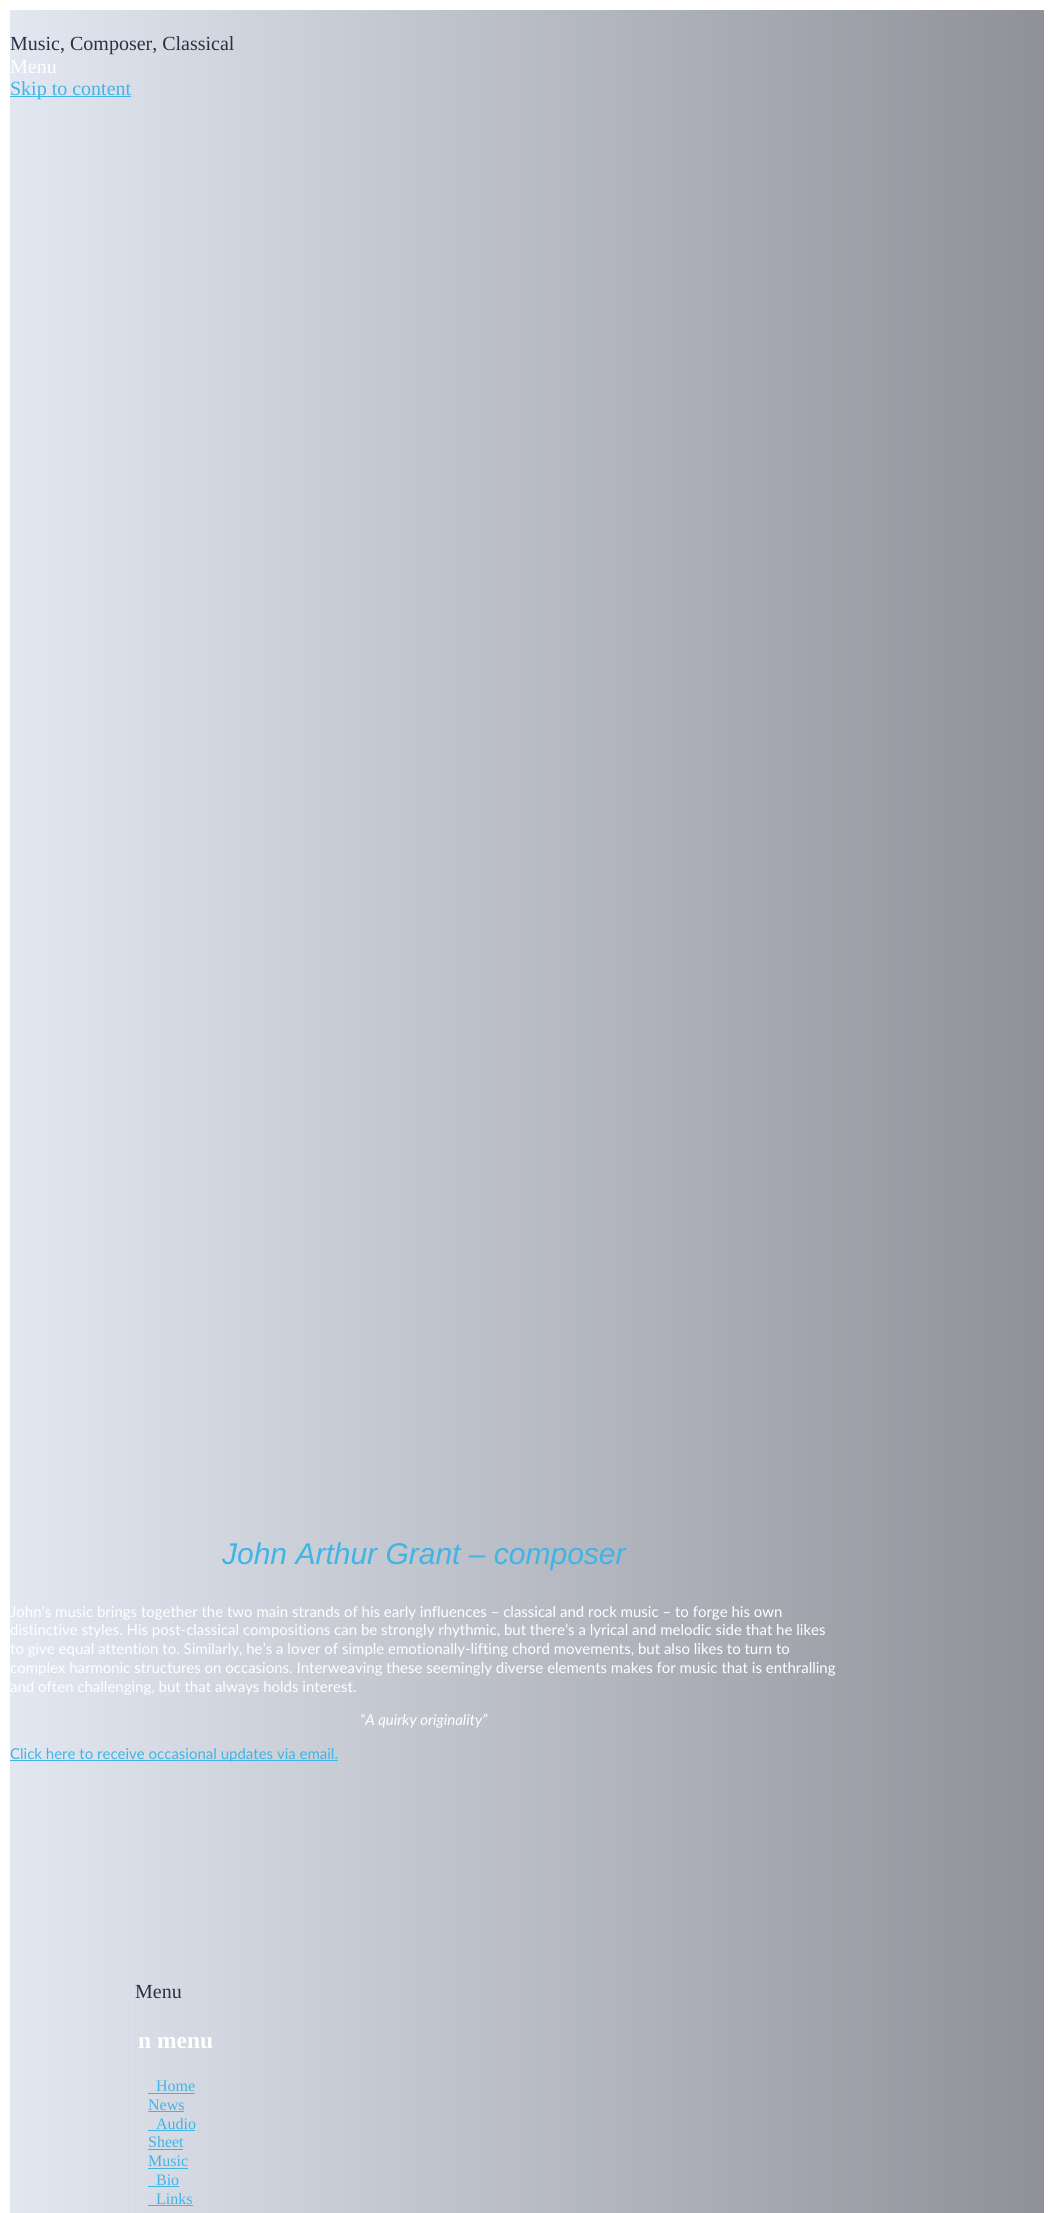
#include <cairo.h>
#include <math.h>
#include <stddef.h>

typedef struct { const char *family; double size; int italic, bold; unsigned color; } style_t;
static cairo_t *ctx;

static void ink(unsigned color) {
    cairo_set_source_rgb(ctx, (color >> 16) / 255.0, (color >> 8 & 255) / 255.0, (color & 255) / 255.0);
}

static void write(double x, double y, const char *s, const style_t *st) {
    cairo_select_font_face(ctx, st->family, st->italic ? CAIRO_FONT_SLANT_ITALIC : CAIRO_FONT_SLANT_NORMAL,
        st->bold ? CAIRO_FONT_WEIGHT_BOLD : CAIRO_FONT_WEIGHT_NORMAL);
    cairo_set_font_size(ctx, st->size);
    ink(st->color);
    cairo_move_to(ctx, x, y);
    cairo_show_text(ctx, s);
}

static void block(double x, double y, double w, double h, unsigned color) {
    ink(color);
    cairo_rectangle(ctx, x, y, w, h);
    cairo_fill(ctx);
}

static const style_t s1 = {"Liberation Serif", 20, 0, 0, 0x283144};
static const style_t s2 = {"Liberation Serif", 20, 0, 0, 0xffffff};
static const style_t s3 = {"Liberation Serif", 20, 0, 0, 0x40b4e5};
static const style_t s4 = {"Liberation Sans", 30, 1, 0, 0x40b4e5};
static const style_t s5 = {"Lato", 15, 0, 0, 0xffffff};
static const style_t s6 = {"Lato", 15, 1, 0, 0xffffff};
static const style_t s7 = {"Lato", 15, 0, 0, 0x40b4e5};
static const style_t s8 = {"Liberation Serif", 23.5, 0, 1, 0xffffff};
static const style_t s9 = {"Liberation Serif", 16, 0, 0, 0x40b4e5};

int main(void) {
    cairo_surface_t *surface = cairo_image_surface_create(CAIRO_FORMAT_RGB24, 1053, 2213);
    ctx = cairo_create(surface);
    cairo_font_options_t *options = cairo_font_options_create();
    cairo_font_options_set_hint_metrics(options, CAIRO_HINT_METRICS_OFF);
    cairo_font_options_set_hint_style(options, CAIRO_HINT_STYLE_NONE);
    cairo_set_font_options(ctx, options);
    cairo_set_miter_limit(ctx, 4);
    cairo_pattern_t *gradient;
    ink(0xffffff);
    cairo_paint(ctx);
    gradient = cairo_pattern_create_linear(10, 1156, 1044, 1156);
    cairo_pattern_add_color_stop_rgba(gradient, 0, 0.89, 0.906, 0.945, 1);
    cairo_pattern_add_color_stop_rgba(gradient, 1, 0.557, 0.569, 0.596, 1);
    cairo_set_source(ctx, gradient);
    cairo_pattern_destroy(gradient);
    cairo_rectangle(ctx, 10, 10, 1034, 2203);
    cairo_fill(ctx);
    write(10, 50, "Music, Composer, Classical", &s1);
    write(10, 73, "Menu", &s2);
    block(10, 96, 121, 1, 0x40b4e5);
    write(10, 95, "Skip to content", &s3);
    write(222, 1564, "John Arthur Grant – composer", &s4);
    write(10, 1617, "John’s music brings together the two main strands of his early influences – classical and rock music – to forge his own", &s5);
    write(10, 1635, "distinctive styles. His post-classical compositions can be strongly rhythmic, but there’s a lyrical and melodic side that he likes", &s5);
    write(10, 1654, "to give equal attention to. Similarly, he’s a lover of simple emotionally-lifting chord movements, but also likes to turn to", &s5);
    write(10, 1673, "complex harmonic structures on occasions. Interweaving these seemingly diverse elements makes for music that is enthralling", &s5);
    write(10, 1692, "and often challenging, but that always holds interest.", &s5);
    write(360, 1725, "“A quirky originality”", &s6);
    block(10, 1760, 328, 1, 0x40b4e5);
    write(10, 1759, "Click here to receive occasional updates via email.", &s7);
    gradient = cairo_pattern_create_linear(135, 2116, 260, 2116);
    cairo_pattern_add_color_stop_rgba(gradient, 0, 0.851, 0.835, 0.835, 0.5);
    cairo_pattern_add_color_stop_rgba(gradient, 0.01, 0.851, 0.835, 0.835, 0);
    cairo_pattern_add_color_stop_rgba(gradient, 0.01, 0, 0, 0, 0);
    cairo_pattern_add_color_stop_rgba(gradient, 0.2, 0.851, 0.835, 0.835, 0);
    cairo_pattern_add_color_stop_rgba(gradient, 0.2, 0.851, 0.835, 0.835, 0.5);
    cairo_pattern_add_color_stop_rgba(gradient, 0.21, 0.851, 0.835, 0.835, 0);
    cairo_pattern_add_color_stop_rgba(gradient, 0.21, 0, 0, 0, 0);
    cairo_pattern_add_color_stop_rgba(gradient, 0.4, 0.851, 0.835, 0.835, 0);
    cairo_pattern_add_color_stop_rgba(gradient, 0.4, 0.851, 0.835, 0.835, 0.5);
    cairo_pattern_add_color_stop_rgba(gradient, 0.41, 0.851, 0.835, 0.835, 0);
    cairo_pattern_add_color_stop_rgba(gradient, 0.41, 0, 0, 0, 0);
    cairo_pattern_add_color_stop_rgba(gradient, 0.6, 0.851, 0.835, 0.835, 0);
    cairo_pattern_add_color_stop_rgba(gradient, 0.6, 0.851, 0.835, 0.835, 0.5);
    cairo_pattern_add_color_stop_rgba(gradient, 0.61, 0.851, 0.835, 0.835, 0);
    cairo_pattern_add_color_stop_rgba(gradient, 0.61, 0, 0, 0, 0);
    cairo_pattern_add_color_stop_rgba(gradient, 0.8, 0.851, 0.835, 0.835, 0);
    cairo_pattern_add_color_stop_rgba(gradient, 0.8, 0.851, 0.835, 0.835, 0.5);
    cairo_pattern_add_color_stop_rgba(gradient, 0.81, 0.851, 0.835, 0.835, 0);
    cairo_pattern_add_color_stop_rgba(gradient, 0.81, 0, 0, 0, 0);
    cairo_pattern_add_color_stop_rgba(gradient, 1, 0, 0, 0, 0);
    cairo_set_source(ctx, gradient);
    cairo_pattern_destroy(gradient);
    cairo_rectangle(ctx, 135, 1980, 101, 233);
    cairo_fill(ctx);
    write(135, 1998, "Menu", &s1);
    write(138, 2048, "n menu", &s8);
    write(156, 2091, "Home", &s9);
    block(148, 2093, 47, 1, 0x40b4e5);
    write(148, 2110, "News", &s9);
    block(148, 2111, 36, 1, 0x40b4e5);
    write(156, 2129, "Audio", &s9);
    block(148, 2130, 47, 1, 0x40b4e5);
    write(148, 2147, "Sheet", &s9);
    block(148, 2149, 35, 1, 0x40b4e5);
    write(148, 2166, "Music", &s9);
    block(148, 2168, 40, 1, 0x40b4e5);
    write(156, 2185, "Bio", &s9);
    block(148, 2186, 31, 1, 0x40b4e5);
    write(156, 2204, "Links", &s9);
    block(148, 2205, 45, 1, 0x40b4e5);
    cairo_surface_write_to_png(surface, "screenshot.png");
    cairo_font_options_destroy(options);
    cairo_destroy(ctx);
    cairo_surface_destroy(surface);
    return 0;
}
